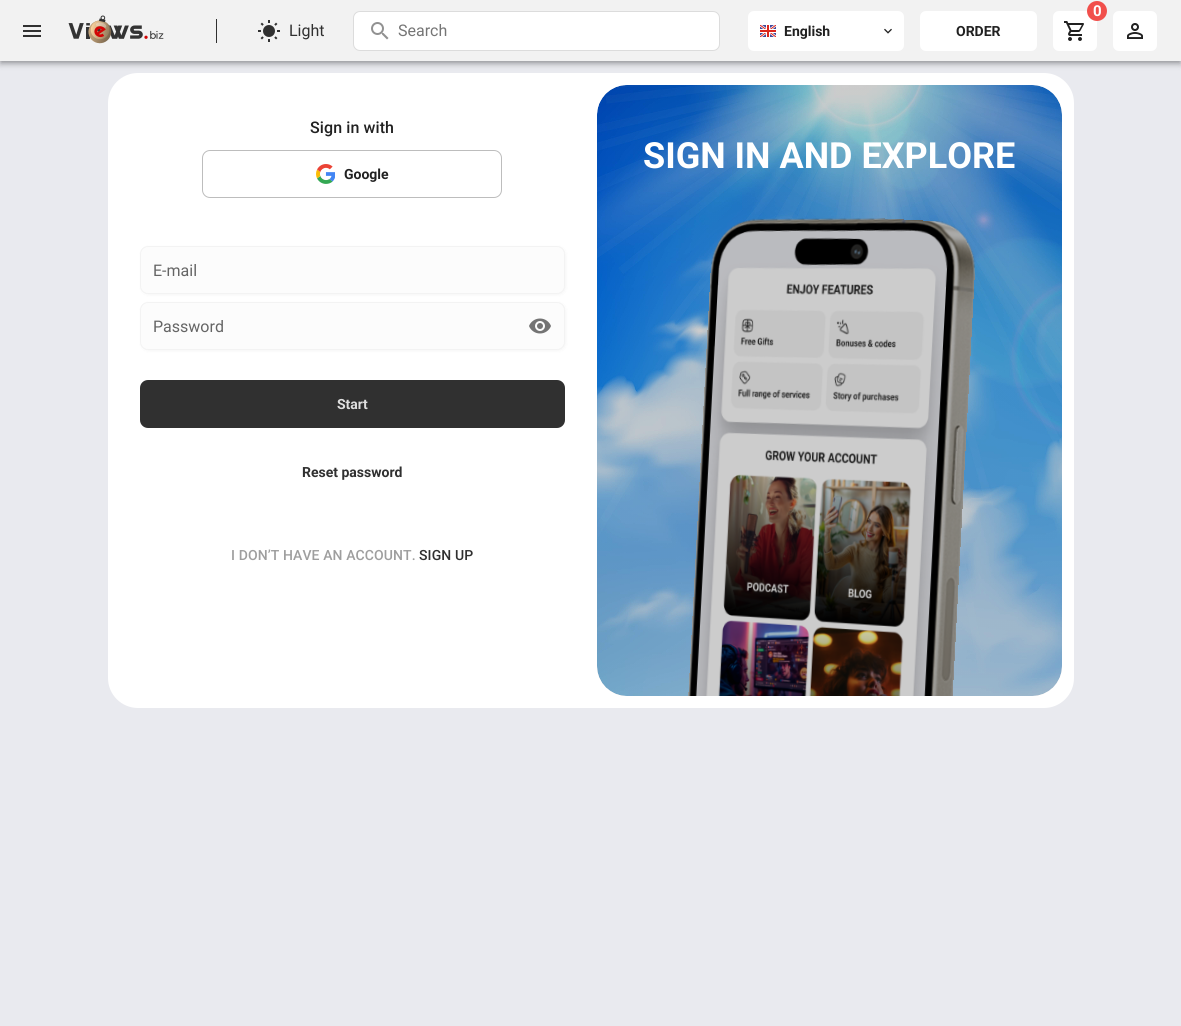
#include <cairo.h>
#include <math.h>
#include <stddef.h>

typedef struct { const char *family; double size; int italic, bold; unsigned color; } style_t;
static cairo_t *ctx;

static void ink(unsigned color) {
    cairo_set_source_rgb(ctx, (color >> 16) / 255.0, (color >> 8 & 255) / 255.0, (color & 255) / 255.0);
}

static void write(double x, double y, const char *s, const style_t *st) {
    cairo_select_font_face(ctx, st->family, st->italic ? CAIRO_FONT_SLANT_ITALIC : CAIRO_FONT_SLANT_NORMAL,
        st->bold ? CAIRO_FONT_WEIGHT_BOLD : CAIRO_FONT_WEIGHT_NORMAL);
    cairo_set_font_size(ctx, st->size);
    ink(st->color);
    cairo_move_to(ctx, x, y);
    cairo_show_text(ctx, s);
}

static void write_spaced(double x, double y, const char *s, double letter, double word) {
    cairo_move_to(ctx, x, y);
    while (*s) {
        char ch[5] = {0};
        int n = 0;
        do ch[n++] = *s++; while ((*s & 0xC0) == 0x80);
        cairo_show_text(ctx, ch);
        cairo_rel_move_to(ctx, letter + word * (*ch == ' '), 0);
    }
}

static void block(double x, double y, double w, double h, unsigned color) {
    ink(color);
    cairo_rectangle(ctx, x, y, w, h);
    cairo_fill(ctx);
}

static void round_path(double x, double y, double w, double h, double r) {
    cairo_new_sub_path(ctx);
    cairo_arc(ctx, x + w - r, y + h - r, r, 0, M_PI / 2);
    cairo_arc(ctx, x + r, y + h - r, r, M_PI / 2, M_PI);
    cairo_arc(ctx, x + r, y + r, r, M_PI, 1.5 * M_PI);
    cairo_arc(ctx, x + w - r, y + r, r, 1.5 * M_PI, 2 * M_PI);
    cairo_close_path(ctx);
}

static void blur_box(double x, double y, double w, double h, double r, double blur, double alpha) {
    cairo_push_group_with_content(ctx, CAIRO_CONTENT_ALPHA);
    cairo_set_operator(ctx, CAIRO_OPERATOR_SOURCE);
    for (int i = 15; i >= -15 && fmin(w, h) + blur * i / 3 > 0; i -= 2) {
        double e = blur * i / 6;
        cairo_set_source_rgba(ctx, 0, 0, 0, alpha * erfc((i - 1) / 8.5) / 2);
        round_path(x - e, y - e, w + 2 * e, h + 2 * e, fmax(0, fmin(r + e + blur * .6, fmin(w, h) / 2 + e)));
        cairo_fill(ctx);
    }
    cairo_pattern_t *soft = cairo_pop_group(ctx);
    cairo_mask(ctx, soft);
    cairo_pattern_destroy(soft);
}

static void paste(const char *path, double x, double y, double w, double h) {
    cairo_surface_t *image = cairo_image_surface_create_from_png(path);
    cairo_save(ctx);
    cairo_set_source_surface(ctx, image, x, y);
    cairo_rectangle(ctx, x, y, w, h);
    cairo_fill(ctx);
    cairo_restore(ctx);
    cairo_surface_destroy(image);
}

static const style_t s1 = {"Roboto", 16, 0, 0, 0x303030};
static const style_t s2 = {"Roboto", 16, 0, 0, 0x757575};
static const style_t s3 = {"Roboto", 14, 0, 1, 0x212121};
static const style_t s4 = {"Roboto", 15, 0, 1, 0xffffff};
static const style_t s5 = {"Roboto", 16, 0, 0, 0x656565};
static const style_t s6 = {"Roboto", 14, 0, 1, 0xdfdfdf};
static const style_t s7 = {"Roboto", 14, 0, 1, 0x303030};
static const style_t s8 = {"Roboto", 36, 0, 1, 0xffffff};

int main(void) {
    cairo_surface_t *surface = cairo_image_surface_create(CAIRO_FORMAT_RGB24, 1181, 1026);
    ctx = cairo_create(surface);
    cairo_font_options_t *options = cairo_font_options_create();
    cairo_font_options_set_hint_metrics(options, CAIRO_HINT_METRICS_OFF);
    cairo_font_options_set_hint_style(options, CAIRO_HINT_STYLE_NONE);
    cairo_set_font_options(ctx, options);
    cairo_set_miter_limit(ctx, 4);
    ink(0xe9eaef);
    cairo_paint(ctx);
    ink(0xffffff);
    round_path(108, 73, 966, 635, 30);
    cairo_fill(ctx);
    ink(0x000000);
    blur_box(0, 1, 1181, 61, 0, 5, 0.12);
    blur_box(0, 4, 1181, 61, 0, 2.5, 0.14);
    blur_box(1, 3, 1179, 59, 0, 2, 0.2);
    block(0, 0, 1181, 61, 0xf2f2f2);
    paste("pic1.png", 23, 25, 18, 12);
    paste("pic2.png", 68, 15, 96, 29);
    block(216, 19, 1, 24, 0x303030);
    paste("pic3.png", 258, 20, 22, 22);
    write(289, 36, "Light", &s1);
    ink(0xffffff);
    round_path(353.5, 11.5, 366, 39, 6.5);
    cairo_fill_preserve(ctx);
    ink(0xdcdcdc);
    cairo_set_line_width(ctx, 1);
    cairo_stroke(ctx);
    paste("pic4.png", 371, 22, 18, 18);
    write(398, 36, "Search", &s2);
    ink(0xffffff);
    round_path(748, 11, 156, 40, 6);
    cairo_fill(ctx);
    paste("pic5.png", 760, 25, 16, 12);
    write(784, 36, "English", &s3);
    paste("pic6.png", 884, 28, 8, 6);
    ink(0xffffff);
    round_path(920, 11, 117, 40, 6);
    cairo_fill(ctx);
    write(956, 36, "ORDER", &s3);
    ink(0xffffff);
    round_path(1053, 11, 44, 40, 6);
    cairo_fill(ctx);
    ink(0xf14f4b);
    cairo_arc(ctx, 1097, 11, 10, 0, 2 * M_PI);
    cairo_fill(ctx);
    write(1093, 16, "0", &s4);
    paste("pic7.png", 1064, 21, 20, 20);
    round_path(1113, 11, 44, 40, 6);
    cairo_fill(ctx);
    paste("pic8.png", 1127, 23, 16, 16);
    cairo_select_font_face(ctx, "Roboto Medium", CAIRO_FONT_SLANT_NORMAL, CAIRO_FONT_WEIGHT_NORMAL);
    cairo_set_font_size(ctx, 16);
    ink(0x212121);
    write_spaced(310, 133, "Sign in with", 0.1, 0);
    round_path(202.5, 150.5, 299, 47, 7.5);
    ink(0xbdbdbd);
    cairo_stroke(ctx);
    paste("pic9.png", 316, 164, 19, 20);
    write(344, 179, "Google", &s3);
    ink(0x000000);
    blur_box(141, 247, 425, 48, 8, 2, 0.04);
    ink(0xfcfcfc);
    round_path(140.5, 246.5, 424, 47, 7.5);
    cairo_fill_preserve(ctx);
    ink(0xf3f3f3);
    cairo_stroke(ctx);
    write(153, 276, "E-mail", &s5);
    ink(0x000000);
    blur_box(141, 303, 425, 48, 8, 2, 0.04);
    ink(0xfcfcfc);
    round_path(140.5, 302.5, 424, 47, 7.5);
    cairo_fill_preserve(ctx);
    ink(0xf3f3f3);
    cairo_stroke(ctx);
    write(153, 332, "Password", &s5);
    paste("pic10.png", 529, 318, 22, 16);
    ink(0x303030);
    round_path(140, 380, 425, 48, 8);
    cairo_fill(ctx);
    write(337, 409, "Start", &s6);
    write(302, 477, "Reset password", &s7);
    cairo_select_font_face(ctx, "Roboto Medium", CAIRO_FONT_SLANT_NORMAL, CAIRO_FONT_WEIGHT_NORMAL);
    ink(0x9e9e9e);
    write_spaced(231, 560, "I DON’T HAVE AN ACCOUNT.", 0.1, 0);
    ink(0x303030);
    write_spaced(419, 560, "SIGN UP", 0.1, 0);
    paste("pic11.png", 597, 85, 465, 611);
    write(643, 168, "SIGN IN AND EXPLORE", &s8);
    paste("pic12.png", 688, 218, 287, 478);
    cairo_surface_write_to_png(surface, "screenshot.png");
    cairo_font_options_destroy(options);
    cairo_destroy(ctx);
    cairo_surface_destroy(surface);
    return 0;
}
